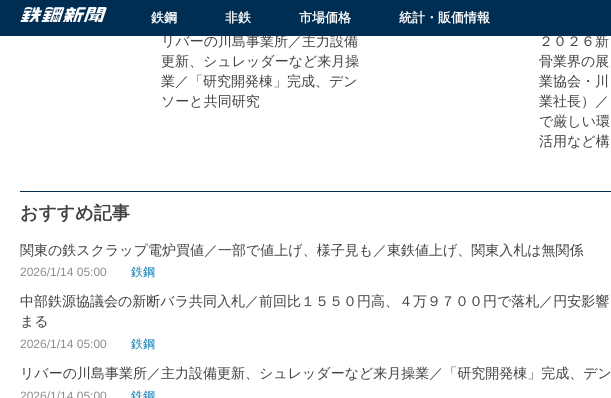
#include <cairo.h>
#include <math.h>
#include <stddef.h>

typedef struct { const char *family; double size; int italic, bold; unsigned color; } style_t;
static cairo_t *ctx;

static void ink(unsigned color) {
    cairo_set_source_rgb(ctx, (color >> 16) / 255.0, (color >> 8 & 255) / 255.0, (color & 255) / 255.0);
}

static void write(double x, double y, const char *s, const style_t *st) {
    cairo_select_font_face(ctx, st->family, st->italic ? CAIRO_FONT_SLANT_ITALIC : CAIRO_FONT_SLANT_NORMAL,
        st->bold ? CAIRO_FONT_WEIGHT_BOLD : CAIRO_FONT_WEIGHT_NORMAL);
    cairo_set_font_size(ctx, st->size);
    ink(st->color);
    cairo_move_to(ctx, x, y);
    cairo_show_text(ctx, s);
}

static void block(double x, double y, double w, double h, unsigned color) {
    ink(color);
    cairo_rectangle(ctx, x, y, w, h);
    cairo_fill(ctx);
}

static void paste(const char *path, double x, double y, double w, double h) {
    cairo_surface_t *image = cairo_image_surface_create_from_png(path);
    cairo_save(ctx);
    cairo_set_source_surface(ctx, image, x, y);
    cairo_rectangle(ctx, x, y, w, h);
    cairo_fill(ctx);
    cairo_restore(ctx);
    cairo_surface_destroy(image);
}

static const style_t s1 = {"WenQuanYi Zen Hei Medium", 14, 0, 0, 0x414141};
static const style_t s2 = {"WenQuanYi Zen Hei", 13, 0, 1, 0xffffff};
static const style_t s3 = {"WenQuanYi Zen Hei", 18, 0, 1, 0x414141};
static const style_t s4 = {"Liberation Sans", 12, 0, 0, 0x8c8c8c};
static const style_t s5 = {"WenQuanYi Zen Hei Medium", 12, 0, 0, 0x0779b3};

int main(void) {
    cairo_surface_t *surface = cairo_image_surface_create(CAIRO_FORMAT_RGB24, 611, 398);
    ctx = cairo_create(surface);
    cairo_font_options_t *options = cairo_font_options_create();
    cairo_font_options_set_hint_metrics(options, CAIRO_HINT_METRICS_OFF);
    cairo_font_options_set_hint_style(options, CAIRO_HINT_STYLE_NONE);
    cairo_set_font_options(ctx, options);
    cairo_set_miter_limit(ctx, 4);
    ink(0xffffff);
    cairo_paint(ctx);
    write(161, 46, "リバーの川島事業所／主力設備", &s1);
    write(539, 46, "２０２６新", &s1);
    block(0, 0, 611, 36, 0x002d52);
    paste("pic1.png", 20, 7, 87, 15);
    write(151, 22, "鉄鋼", &s2);
    write(225, 22, "非鉄", &s2);
    write(299, 22, "市場価格", &s2);
    write(399, 22, "統計・販価情報", &s2);
    write(161, 66, "更新、シュレッダーなど来月操", &s1);
    write(161, 86, "業／「研究開発棟」完成、デン", &s1);
    write(161, 106, "ソーと共同研究", &s1);
    write(539, 66, "骨業界の展", &s1);
    write(539, 86, "業協会・川", &s1);
    write(539, 106, "業社長）／", &s1);
    write(539, 126, "で厳しい環", &s1);
    write(539, 146, "活用など構", &s1);
    block(20, 191, 591, 1, 0x002d52);
    write(20, 219, "おすすめ記事", &s3);
    write(20, 255, "関東の鉄スクラップ電炉買値／一部で値上げ、様子見も／東鉄値上げ、関東入札は無関係", &s1);
    write(20, 276, "2026/1/14 05:00", &s4);
    write(131, 276, "鉄鋼", &s5);
    write(20, 306, "中部鉄源協議会の新断バラ共同入札／前回比１５５０円高、４万９７００円で落札／円安影響", &s1);
    write(20, 326, "まる", &s1);
    write(20, 348, "2026/1/14 05:00", &s4);
    write(131, 348, "鉄鋼", &s5);
    write(20, 378, "リバーの川島事業所／主力設備更新、シュレッダーなど来月操業／「研究開発棟」完成、デン", &s1);
    write(20, 400, "2026/1/14 05:00", &s4);
    write(131, 400, "鉄鋼", &s5);
    cairo_surface_write_to_png(surface, "screenshot.png");
    cairo_font_options_destroy(options);
    cairo_destroy(ctx);
    cairo_surface_destroy(surface);
    return 0;
}
